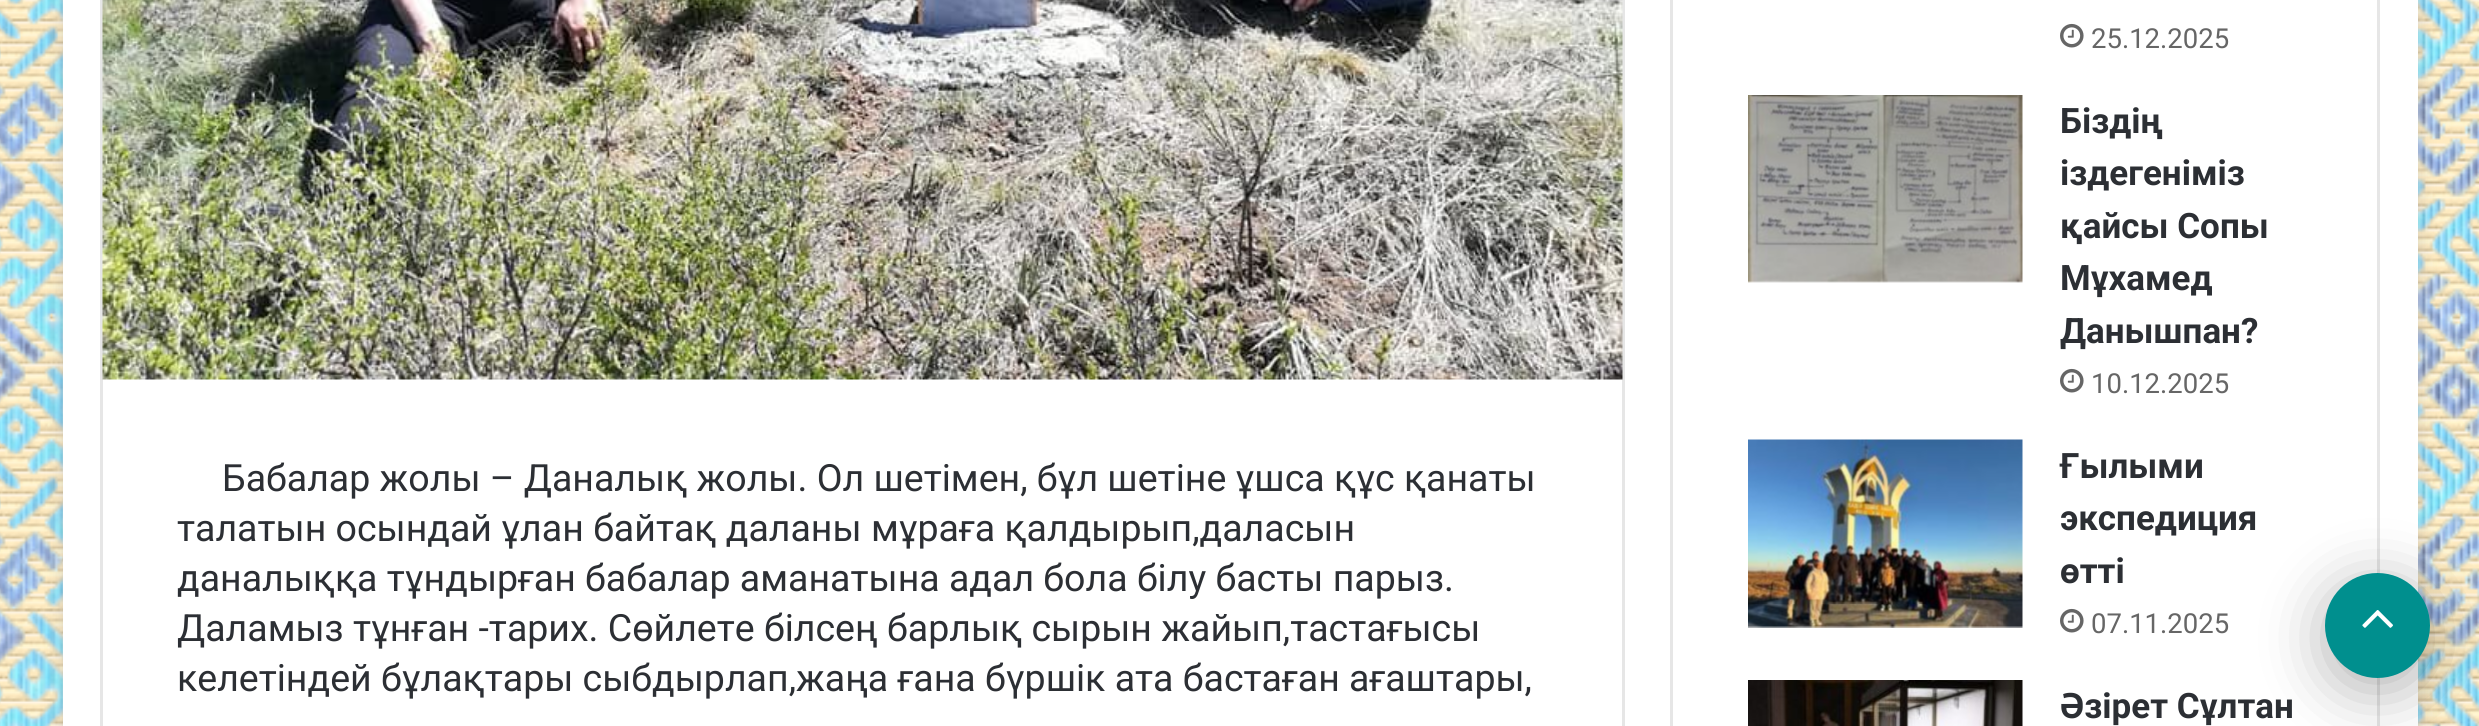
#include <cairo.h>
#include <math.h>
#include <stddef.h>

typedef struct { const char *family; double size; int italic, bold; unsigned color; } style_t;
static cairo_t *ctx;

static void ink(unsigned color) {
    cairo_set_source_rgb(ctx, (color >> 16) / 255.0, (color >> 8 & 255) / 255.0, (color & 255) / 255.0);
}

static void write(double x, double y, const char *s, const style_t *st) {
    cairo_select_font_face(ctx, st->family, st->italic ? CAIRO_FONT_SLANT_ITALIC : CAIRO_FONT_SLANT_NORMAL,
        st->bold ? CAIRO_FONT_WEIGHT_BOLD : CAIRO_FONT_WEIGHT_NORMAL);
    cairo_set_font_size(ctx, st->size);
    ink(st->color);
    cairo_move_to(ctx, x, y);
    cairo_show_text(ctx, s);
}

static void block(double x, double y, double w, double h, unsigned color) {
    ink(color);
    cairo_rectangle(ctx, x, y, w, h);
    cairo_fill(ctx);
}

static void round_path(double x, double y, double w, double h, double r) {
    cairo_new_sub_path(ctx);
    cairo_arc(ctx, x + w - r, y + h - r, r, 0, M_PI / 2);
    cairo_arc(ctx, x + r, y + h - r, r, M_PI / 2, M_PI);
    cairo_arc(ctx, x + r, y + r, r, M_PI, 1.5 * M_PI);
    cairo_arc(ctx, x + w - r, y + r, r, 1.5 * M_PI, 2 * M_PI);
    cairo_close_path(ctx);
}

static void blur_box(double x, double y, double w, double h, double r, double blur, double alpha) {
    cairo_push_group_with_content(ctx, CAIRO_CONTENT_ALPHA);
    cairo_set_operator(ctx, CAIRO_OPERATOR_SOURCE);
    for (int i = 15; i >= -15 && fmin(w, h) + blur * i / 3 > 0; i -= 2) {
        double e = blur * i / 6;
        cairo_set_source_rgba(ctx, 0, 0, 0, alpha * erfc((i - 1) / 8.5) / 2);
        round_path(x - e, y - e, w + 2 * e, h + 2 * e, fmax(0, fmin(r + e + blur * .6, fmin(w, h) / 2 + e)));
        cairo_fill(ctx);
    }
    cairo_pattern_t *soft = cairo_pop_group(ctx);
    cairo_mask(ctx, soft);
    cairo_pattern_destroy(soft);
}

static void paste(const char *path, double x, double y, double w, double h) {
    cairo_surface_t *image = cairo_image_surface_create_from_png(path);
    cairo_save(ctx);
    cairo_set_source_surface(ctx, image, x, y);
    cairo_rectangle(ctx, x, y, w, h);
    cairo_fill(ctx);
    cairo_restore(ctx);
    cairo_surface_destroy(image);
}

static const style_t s1 = {"Roboto", 37.5, 0, 0, 0x2c2f34};
static const style_t s2 = {"Roboto", 27.5, 0, 0, 0x666666};
static const style_t s3 = {"Roboto", 35, 0, 1, 0x2c2f34};

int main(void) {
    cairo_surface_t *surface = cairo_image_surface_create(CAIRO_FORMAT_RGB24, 2479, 726);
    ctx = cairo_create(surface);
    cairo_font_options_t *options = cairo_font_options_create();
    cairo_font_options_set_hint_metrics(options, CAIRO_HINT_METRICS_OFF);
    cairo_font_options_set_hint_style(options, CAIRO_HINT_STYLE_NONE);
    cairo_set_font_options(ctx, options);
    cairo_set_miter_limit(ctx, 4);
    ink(0xffffff);
    cairo_paint(ctx);
    paste("pic1.png", 0, 0, 2479, 726);
    ink(0xababab);
    blur_box(63, -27, 2355, 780, 0, 9, 0.5);
    block(63, 0, 2355, 726, 0xffffff);
    cairo_rectangle(ctx, 101.5, -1.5, 1522, 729);
    ink(0xe6e6e6);
    cairo_set_line_width(ctx, 3);
    cairo_stroke(ctx);
    paste("pic2.png", 102, 0, 1521, 380);
    write(222, 491, "Бабалар жолы – Даналық жолы. Ол шетімен, бұл шетіне ұшса құс қанаты", &s1);
    write(177, 541, "талатын осындай ұлан байтақ даланы мұраға қалдырып,даласын", &s1);
    write(177, 591, "даналыққа тұндырған бабалар аманатына адал бола білу басты парыз.", &s1);
    write(177, 641, "Даламыз тұнған -тарих. Сөйлете білсең барлық сырын жайып,тастағысы", &s1);
    write(177, 691, "келетіндей бұлақтары сыбдырлап,жаңа ғана бүршік ата бастаған ағаштары,", &s1);
    cairo_rectangle(ctx, 1671.5, -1.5, 707, 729);
    ink(0xe6e6e6);
    cairo_stroke(ctx);
    paste("pic3.png", 2060, 23, 24, 25);
    write(2091, 48, "25.12.2025", &s2);
    paste("pic4.png", 1748, 95, 275, 188);
    write(2060, 133, "Біздің", &s3);
    write(2060, 185, "іздегеніміз", &s3);
    write(2060, 238, "қайсы Сопы", &s3);
    write(2060, 290, "Мұхамед", &s3);
    write(2060, 343, "Данышпан?", &s3);
    paste("pic3.png", 2060, 368, 24, 25);
    write(2091, 393, "10.12.2025", &s2);
    paste("pic5.png", 1748, 439, 275, 189);
    write(2060, 478, "Ғылыми", &s3);
    write(2060, 530, "экспедиция", &s3);
    write(2060, 583, "өтті", &s3);
    paste("pic3.png", 2060, 608, 24, 25);
    write(2091, 633, "07.11.2025", &s2);
    paste("pic6.png", 1748, 680, 275, 46);
    write(2060, 718, "Әзірет Сұлтан", &s3);
    ink(0x000000);
    blur_box(2325, 585, 105, 105, 52.5, 31, 0.3);
    ink(0x008f8e);
    cairo_arc(ctx, 2377.5, 625.5, 52.5, 0, 2 * M_PI);
    cairo_fill(ctx);
    paste("pic7.png", 2362, 610, 31, 18);
    cairo_surface_write_to_png(surface, "screenshot.png");
    cairo_font_options_destroy(options);
    cairo_destroy(ctx);
    cairo_surface_destroy(surface);
    return 0;
}
